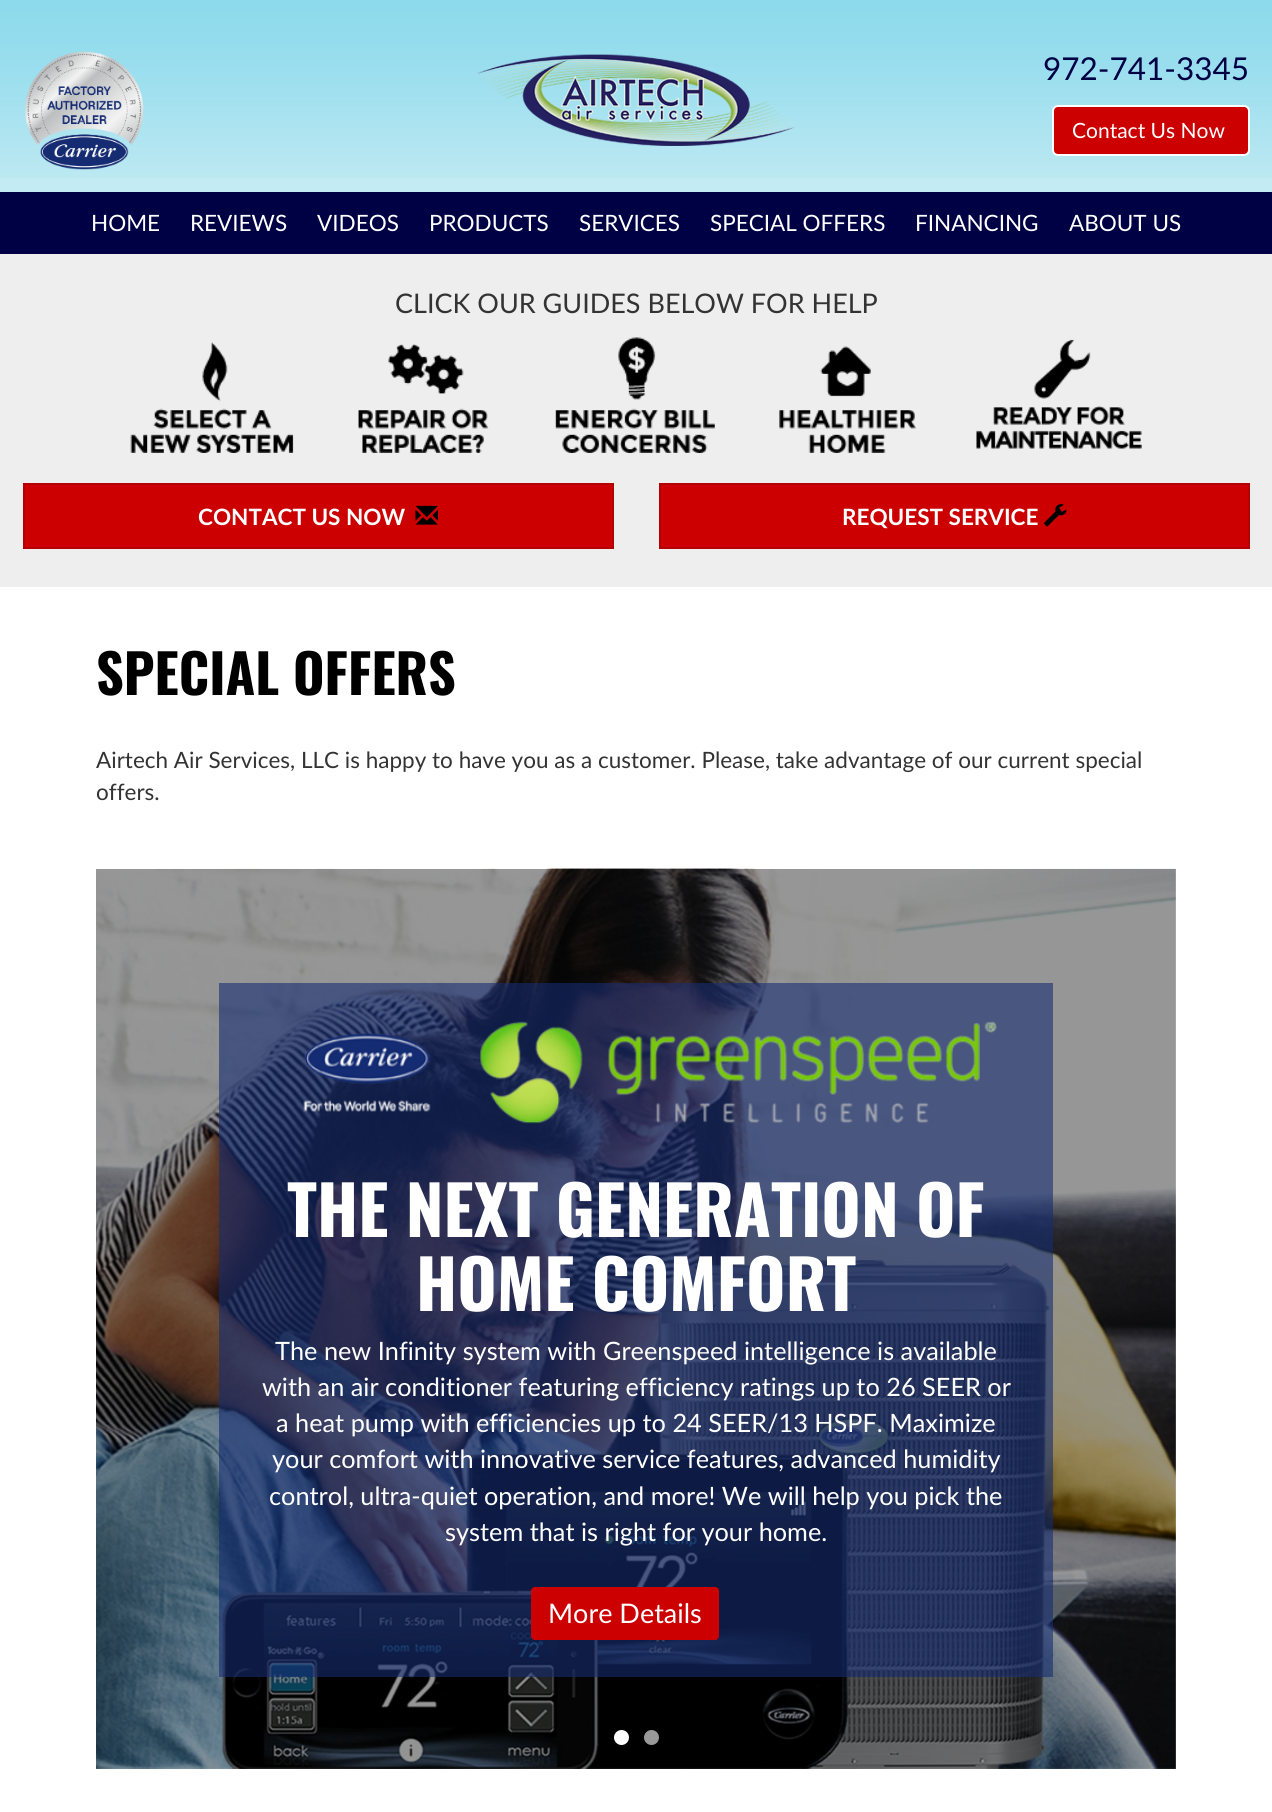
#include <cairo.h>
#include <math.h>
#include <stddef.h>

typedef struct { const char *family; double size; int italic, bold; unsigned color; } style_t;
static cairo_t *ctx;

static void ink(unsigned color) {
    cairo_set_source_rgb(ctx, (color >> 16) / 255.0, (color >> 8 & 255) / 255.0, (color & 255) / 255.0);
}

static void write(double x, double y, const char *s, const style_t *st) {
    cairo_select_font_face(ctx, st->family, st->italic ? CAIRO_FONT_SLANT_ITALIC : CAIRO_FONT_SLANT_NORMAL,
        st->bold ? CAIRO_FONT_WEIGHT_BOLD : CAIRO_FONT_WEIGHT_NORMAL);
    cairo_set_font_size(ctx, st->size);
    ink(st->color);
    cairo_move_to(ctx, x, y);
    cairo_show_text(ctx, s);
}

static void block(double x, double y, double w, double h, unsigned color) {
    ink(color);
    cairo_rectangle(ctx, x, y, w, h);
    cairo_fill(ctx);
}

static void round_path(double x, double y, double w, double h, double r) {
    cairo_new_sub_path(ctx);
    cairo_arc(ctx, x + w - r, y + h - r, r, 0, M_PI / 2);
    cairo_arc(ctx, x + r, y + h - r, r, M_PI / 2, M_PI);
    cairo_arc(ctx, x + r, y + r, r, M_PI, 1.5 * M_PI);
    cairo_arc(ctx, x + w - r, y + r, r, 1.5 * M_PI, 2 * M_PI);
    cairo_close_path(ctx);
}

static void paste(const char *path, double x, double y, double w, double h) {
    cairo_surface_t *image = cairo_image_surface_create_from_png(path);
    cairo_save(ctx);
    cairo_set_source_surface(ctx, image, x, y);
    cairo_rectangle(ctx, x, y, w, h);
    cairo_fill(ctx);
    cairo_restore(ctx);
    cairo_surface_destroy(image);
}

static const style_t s1 = {"Lato", 31.5, 0, 0, 0x000144};
static const style_t s2 = {"Lato", 21, 0, 0, 0xffffff};
static const style_t s3 = {"Lato", 22.5, 0, 0, 0xffffff};
static const style_t s4 = {"Lato", 27, 0, 0, 0x333333};
static const style_t s5 = {"Lato", 22.5, 0, 1, 0xffffff};
static const style_t s6 = {"Oswald", 54, 0, 1, 0x000000};
static const style_t s7 = {"Lato", 22.5, 0, 0, 0x333333};
static const style_t s8 = {"Oswald", 67.5, 0, 1, 0xffffff};
static const style_t s9 = {"Lato", 25.3, 0, 0, 0xffffff};
static const style_t s10 = {"Lato", 27, 0, 0, 0xffffff};

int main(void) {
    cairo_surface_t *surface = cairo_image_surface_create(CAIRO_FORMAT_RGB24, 1272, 1812);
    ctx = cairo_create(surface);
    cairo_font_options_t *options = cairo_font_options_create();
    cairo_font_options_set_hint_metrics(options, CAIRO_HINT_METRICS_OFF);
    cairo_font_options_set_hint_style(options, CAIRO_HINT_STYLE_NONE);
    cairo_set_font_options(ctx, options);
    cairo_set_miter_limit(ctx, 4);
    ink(0xffffff);
    cairo_paint(ctx);
    paste("pic1.png", 0, 0, 1272, 178);
    paste("pic2.png", 25, 52, 119, 118);
    paste("pic3.png", 476, 54, 320, 92);
    write(1043, 80, "972-741-3345", &s1);
    ink(0xcc0000);
    round_path(1053, 106, 196, 49, 5);
    cairo_fill_preserve(ctx);
    ink(0xffffff);
    cairo_stroke(ctx);
    write(1072, 138, "Contact Us Now", &s2);
    block(0, 178, 1272, 14, 0xc3ebf3);
    block(0, 192, 1272, 62, 0x000144);
    write(91, 231, "HOME", &s3);
    write(190, 231, "REVIEWS", &s3);
    write(317, 231, "VIDEOS", &s3);
    write(429, 231, "PRODUCTS", &s3);
    write(579, 231, "SERVICES", &s3);
    write(710, 231, "SPECIAL OFFERS", &s3);
    write(915, 231, "FINANCING", &s3);
    write(1069, 231, "ABOUT US", &s3);
    block(0, 254, 1272, 333, 0xeeeeee);
    write(395, 313, "CLICK OUR GUIDES BELOW FOR HELP", &s4);
    paste("pic4.png", 130, 342, 164, 111);
    paste("pic5.png", 358, 344, 131, 109);
    paste("pic6.png", 555, 337, 160, 116);
    paste("pic7.png", 779, 346, 138, 107);
    paste("pic8.png", 976, 339, 166, 110);
    ink(0xcc0000);
    cairo_rectangle(ctx, 24, 484, 589, 64);
    cairo_fill_preserve(ctx);
    ink(0xb30000);
    cairo_stroke(ctx);
    write(198, 525, "CONTACT US NOW", &s5);
    paste("pic9.png", 415, 505, 23, 20);
    ink(0xcc0000);
    cairo_rectangle(ctx, 660, 484, 589, 64);
    cairo_fill_preserve(ctx);
    ink(0xb30000);
    cairo_stroke(ctx);
    write(842, 525, "REQUEST SERVICE", &s5);
    paste("pic10.png", 1044, 504, 23, 23);
    write(96, 695, "SPECIAL OFFERS", &s6);
    write(96, 768, "Airtech Air Services, LLC is happy to have you as a customer. Please, take advantage of our current special", &s7);
    write(96, 800, "offers.", &s7);
    paste("pic11.png", 96, 868, 1080, 901);
    cairo_set_source_rgba(ctx, 0.082, 0.173, 0.447, 0.6);
    cairo_rectangle(ctx, 219, 983, 834, 694);
    cairo_fill(ctx);
    paste("pic12.png", 303, 1021, 694, 103);
    write(287, 1237, "THE NEXT GENERATION OF", &s8);
    write(416, 1311, "HOME COMFORT", &s8);
    write(275, 1360, "The new Infinity system with Greenspeed intelligence is available", &s9);
    write(262, 1396, "with an air conditioner featuring efficiency ratings up to 26 SEER or", &s9);
    write(276, 1432, "a heat pump with efficiencies up to 24 SEER/13 HSPF. Maximize", &s9);
    write(272, 1468, "your comfort with innovative service features, advanced humidity", &s9);
    write(269, 1505, "control, ultra-quiet operation, and more! We will help you pick the", &s9);
    write(445, 1541, "system that is right for your home.", &s9);
    ink(0xcc0000);
    round_path(531, 1587, 188, 53, 4);
    cairo_fill(ctx);
    write(548, 1623, "More Details", &s10);
    cairo_new_path(ctx);
    cairo_arc(ctx, 621.5, 1737.5, 7.5, 0, 2 * M_PI);
    cairo_fill(ctx);
    ink(0x999999);
    cairo_arc(ctx, 651.5, 1737.5, 7.5, 0, 2 * M_PI);
    cairo_fill(ctx);
    cairo_surface_write_to_png(surface, "screenshot.png");
    cairo_font_options_destroy(options);
    cairo_destroy(ctx);
    cairo_surface_destroy(surface);
    return 0;
}
